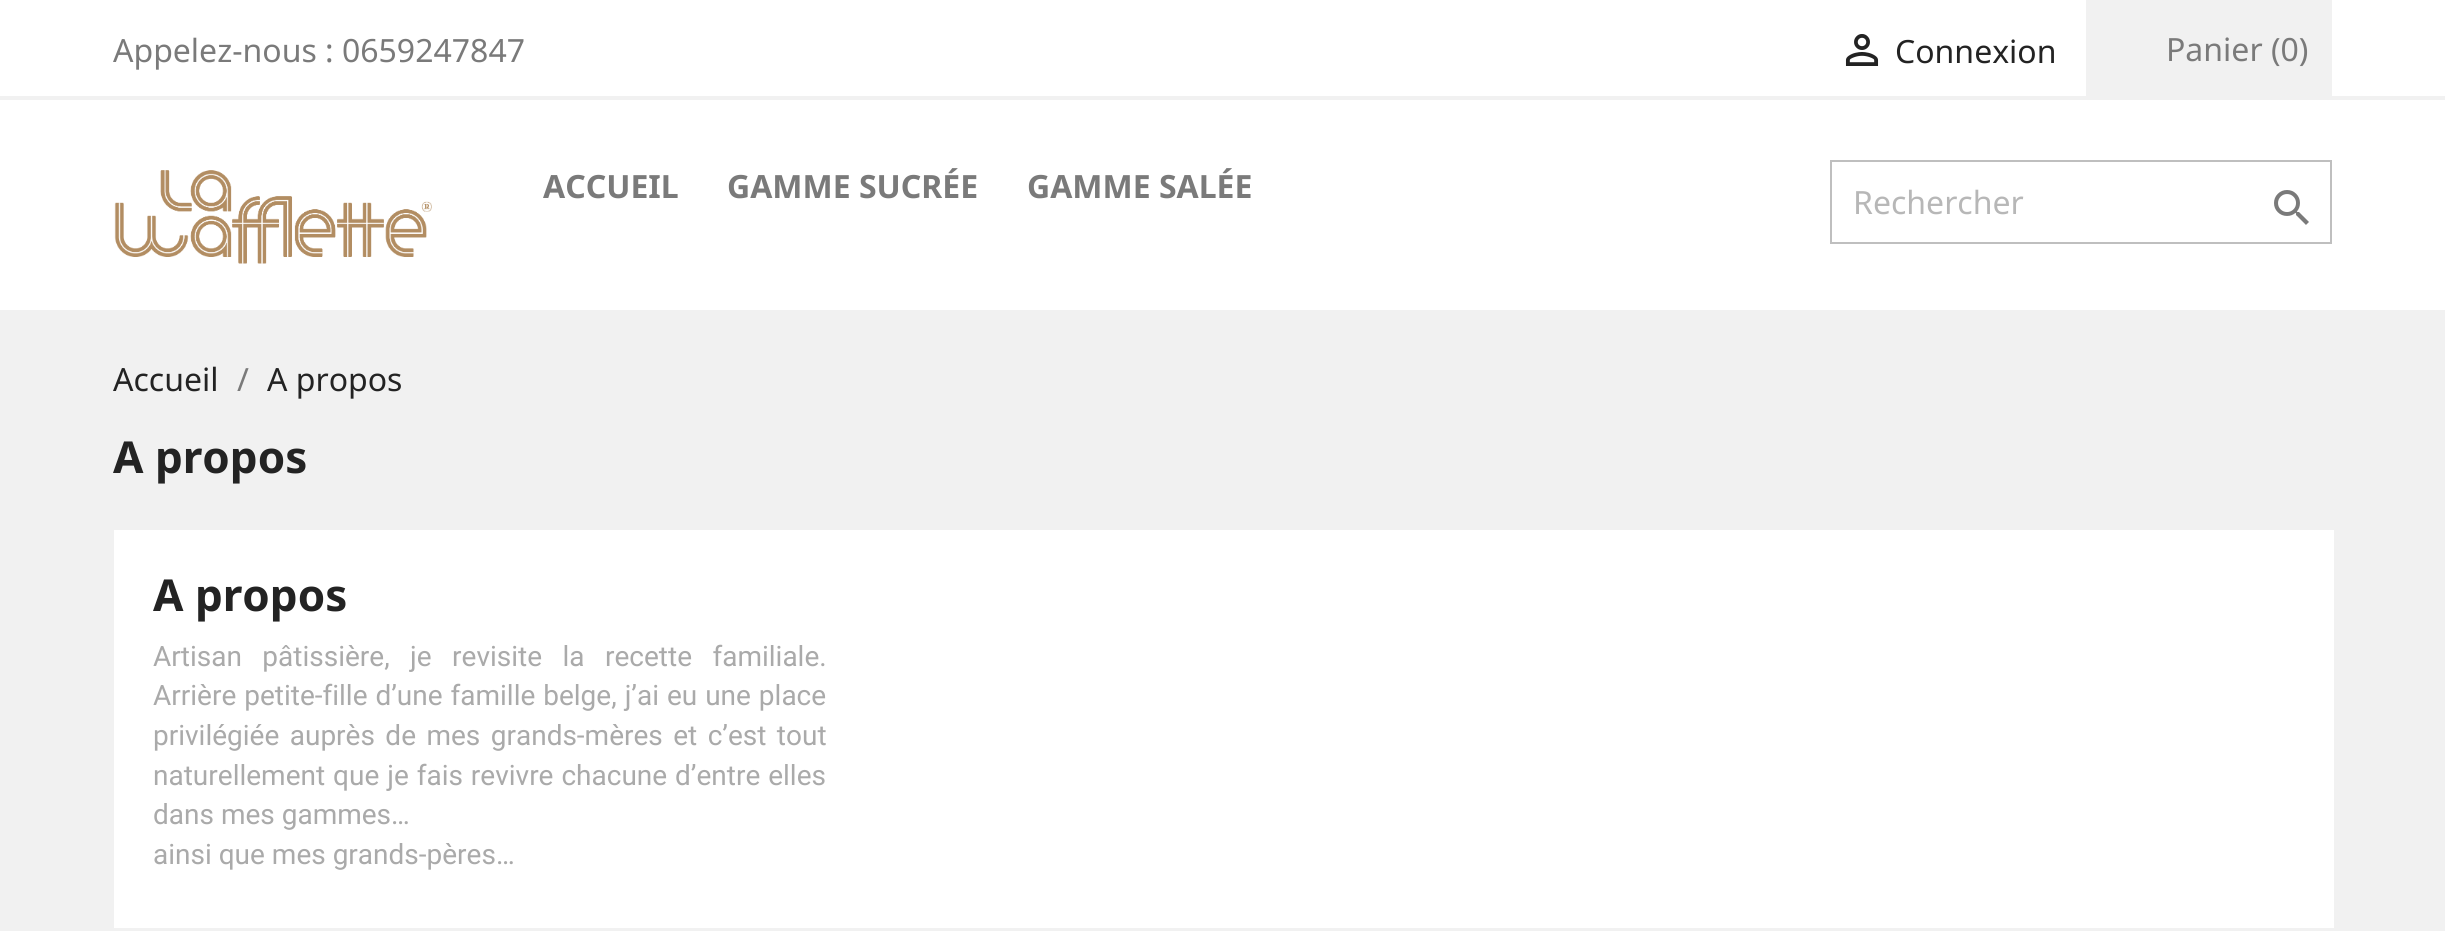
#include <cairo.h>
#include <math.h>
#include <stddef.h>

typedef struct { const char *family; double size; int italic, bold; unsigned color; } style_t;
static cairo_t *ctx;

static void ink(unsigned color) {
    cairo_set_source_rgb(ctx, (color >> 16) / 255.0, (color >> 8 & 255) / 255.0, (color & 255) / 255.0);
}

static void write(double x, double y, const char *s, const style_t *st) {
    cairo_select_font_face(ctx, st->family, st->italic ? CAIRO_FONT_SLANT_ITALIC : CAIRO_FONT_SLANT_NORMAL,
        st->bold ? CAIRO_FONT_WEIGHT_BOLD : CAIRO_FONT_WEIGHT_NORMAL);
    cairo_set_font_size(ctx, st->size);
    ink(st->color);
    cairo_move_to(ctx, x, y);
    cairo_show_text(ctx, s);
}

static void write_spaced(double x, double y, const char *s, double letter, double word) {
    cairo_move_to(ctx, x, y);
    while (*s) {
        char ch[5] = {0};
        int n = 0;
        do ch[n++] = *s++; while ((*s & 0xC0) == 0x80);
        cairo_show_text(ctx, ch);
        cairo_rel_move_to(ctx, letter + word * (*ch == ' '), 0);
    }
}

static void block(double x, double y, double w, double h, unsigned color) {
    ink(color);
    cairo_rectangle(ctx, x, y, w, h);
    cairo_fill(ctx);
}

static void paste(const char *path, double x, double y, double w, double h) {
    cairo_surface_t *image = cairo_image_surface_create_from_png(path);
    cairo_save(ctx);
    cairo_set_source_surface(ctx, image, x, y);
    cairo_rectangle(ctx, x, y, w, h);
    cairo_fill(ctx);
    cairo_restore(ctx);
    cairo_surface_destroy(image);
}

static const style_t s1 = {"Noto Sans", 32, 0, 0, 0x7a7a7a};
static const style_t s2 = {"Noto Sans", 32, 0, 0, 0x232323};
static const style_t s3 = {"Noto Sans", 32, 0, 1, 0x7a7a7a};
static const style_t s4 = {"Noto Sans", 32, 0, 0, 0xb7b7b7};
static const style_t s5 = {"Noto Sans", 44, 0, 1, 0x232323};
static const style_t s6 = {"Roboto", 28, 0, 0, 0xaaaaaa};

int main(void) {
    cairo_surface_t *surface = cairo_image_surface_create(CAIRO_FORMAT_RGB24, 2445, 931);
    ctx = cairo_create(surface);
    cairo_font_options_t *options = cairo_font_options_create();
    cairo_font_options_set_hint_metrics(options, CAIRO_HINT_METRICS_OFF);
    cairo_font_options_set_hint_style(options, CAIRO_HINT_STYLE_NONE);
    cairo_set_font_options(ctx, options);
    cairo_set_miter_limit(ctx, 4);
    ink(0xffffff);
    cairo_paint(ctx);
    block(0, 96, 2445, 4, 0xf1f1f1);
    write(113, 62, "Appelez-nous : 0659247847", &s1);
    paste("pic1.png", 1845, 34, 34, 32);
    write(1895, 63, "Connexion", &s2);
    block(2086, 0, 246, 96, 0xf1f1f1);
    write(2166, 61, "Panier (0)", &s1);
    paste("pic2.png", 114, 170, 318, 94);
    write(543, 198, "ACCUEIL", &s3);
    write(727, 198, "GAMME SUCRÉE", &s3);
    write(1027, 198, "GAMME SALÉE", &s3);
    cairo_rectangle(ctx, 1831, 161, 500, 82);
    ink(0xbfbfbf);
    cairo_stroke(ctx);
    write(1853, 214, "Rechercher", &s4);
    paste("pic3.png", 2274, 190, 35, 35);
    block(0, 310, 2445, 621, 0xf1f1f1);
    write(113, 391, "Accueil", &s2);
    write(237, 391, "/", &s1);
    write(267, 391, "A propos", &s2);
    write(113, 473, "A propos", &s5);
    block(114, 530, 2220, 398, 0xffffff);
    write(153, 611, "A propos", &s5);
    cairo_select_font_face(ctx, "Roboto", CAIRO_FONT_SLANT_NORMAL, CAIRO_FONT_WEIGHT_NORMAL);
    cairo_set_font_size(ctx, 28);
    ink(0xaaaaaa);
    write_spaced(153, 666, "Artisan pâtissière, je revisite la recette familiale.", 0, 13.5);
    write_spaced(153, 705, "Arrière petite-fille d’une famille belge, j’ai eu une place", 0, 1);
    write_spaced(153, 745, "privilégiée auprès de mes grands-mères et c’est tout", 0, 3.5);
    write_spaced(153, 785, "naturellement que je fais revivre chacune d’entre elles", 0, 1);
    write(153, 824, "dans mes gammes…", &s6);
    write(153, 864, "ainsi que mes grands-pères…", &s6);
    cairo_surface_write_to_png(surface, "screenshot.png");
    cairo_font_options_destroy(options);
    cairo_destroy(ctx);
    cairo_surface_destroy(surface);
    return 0;
}
